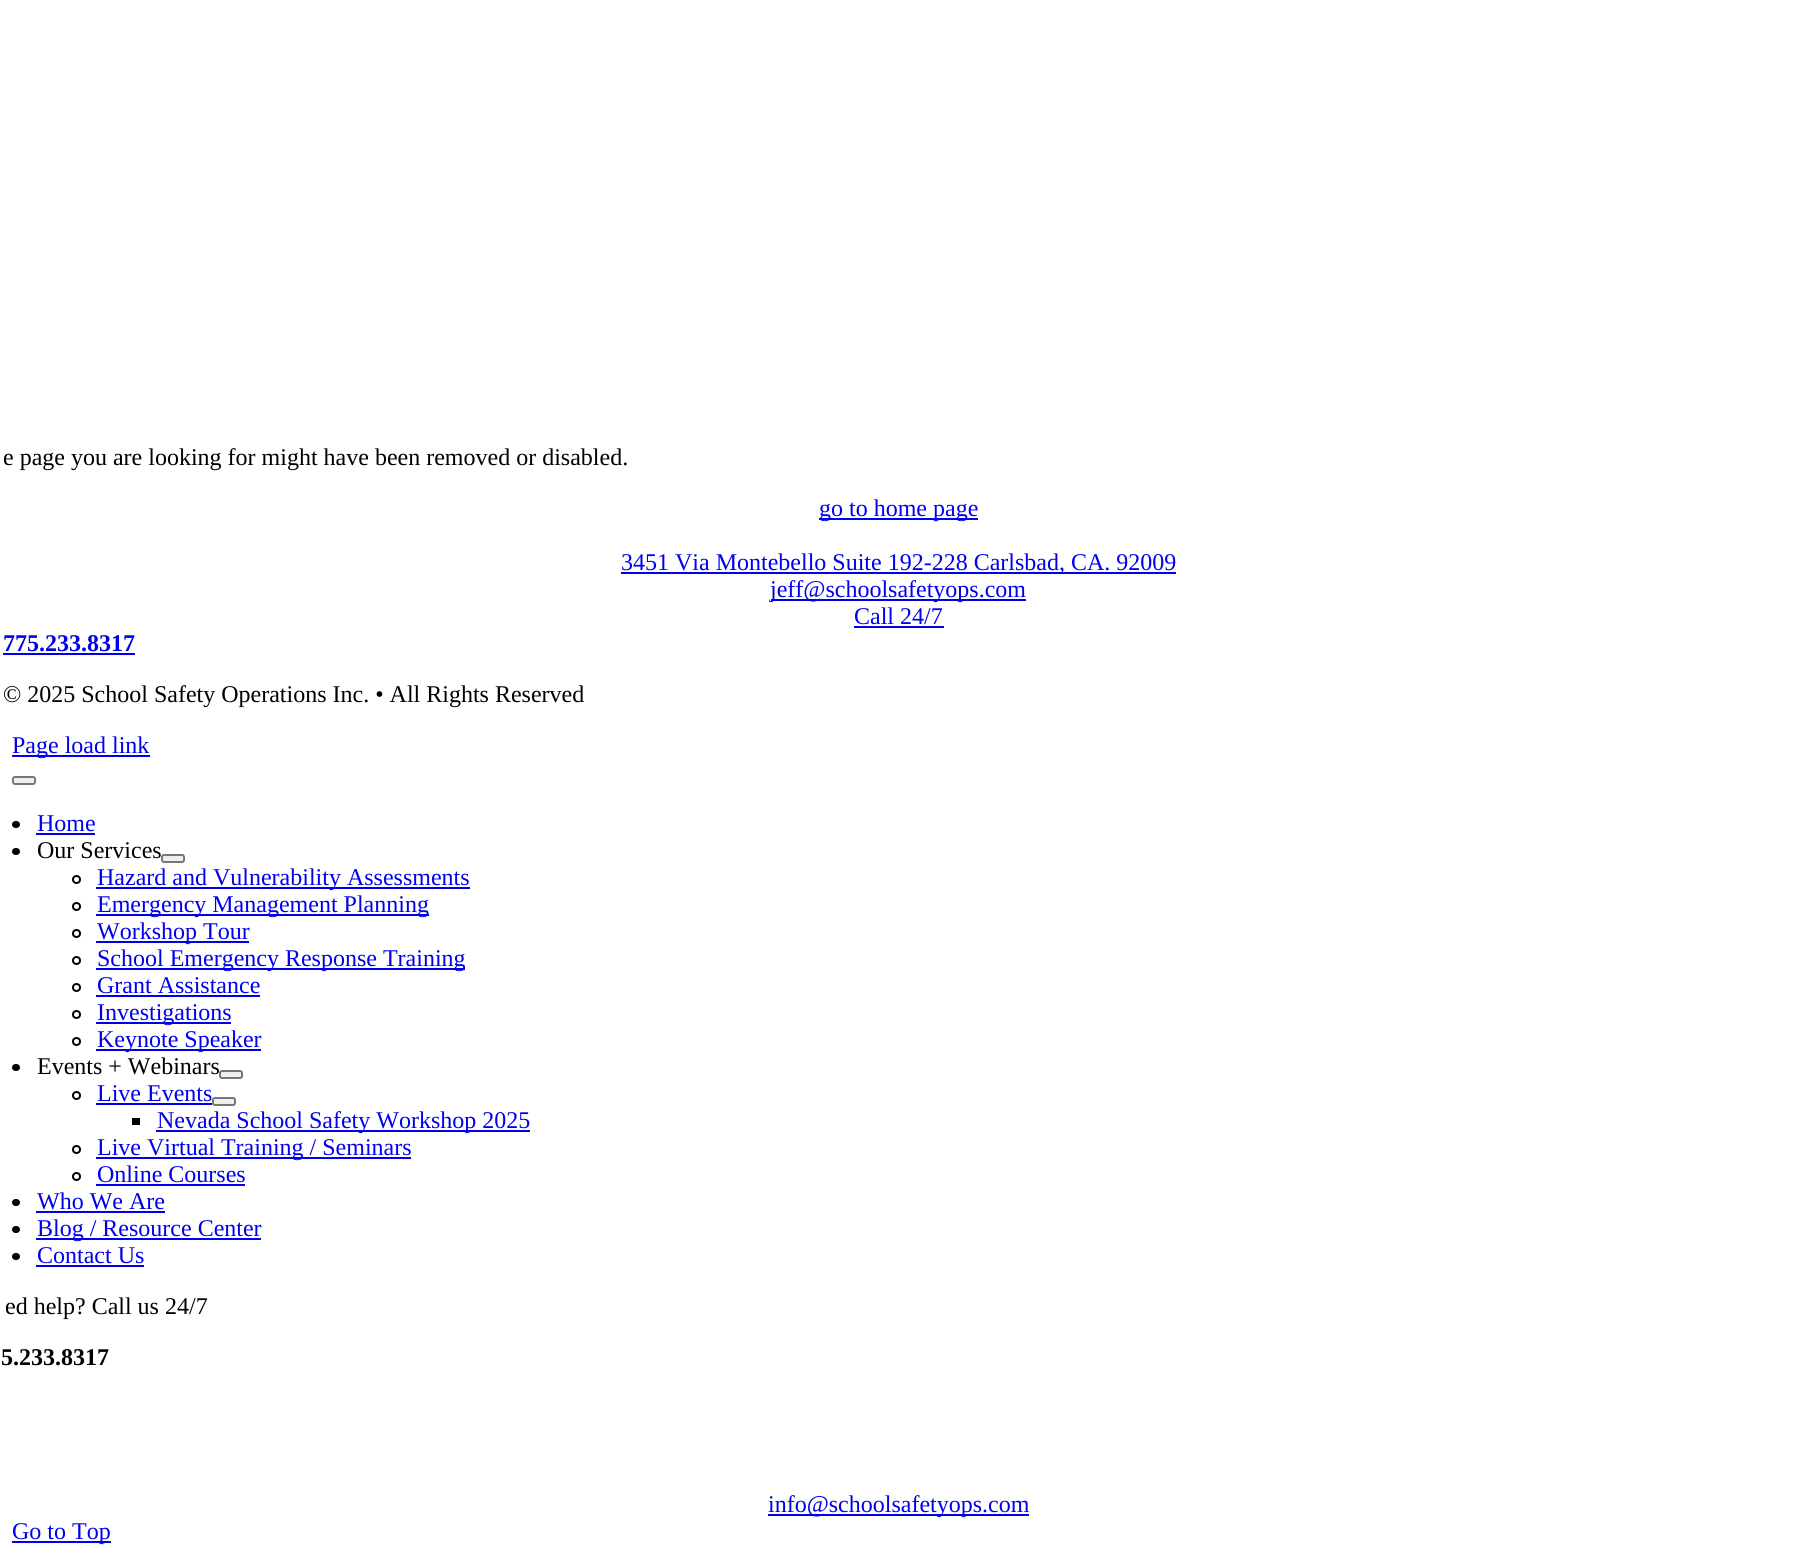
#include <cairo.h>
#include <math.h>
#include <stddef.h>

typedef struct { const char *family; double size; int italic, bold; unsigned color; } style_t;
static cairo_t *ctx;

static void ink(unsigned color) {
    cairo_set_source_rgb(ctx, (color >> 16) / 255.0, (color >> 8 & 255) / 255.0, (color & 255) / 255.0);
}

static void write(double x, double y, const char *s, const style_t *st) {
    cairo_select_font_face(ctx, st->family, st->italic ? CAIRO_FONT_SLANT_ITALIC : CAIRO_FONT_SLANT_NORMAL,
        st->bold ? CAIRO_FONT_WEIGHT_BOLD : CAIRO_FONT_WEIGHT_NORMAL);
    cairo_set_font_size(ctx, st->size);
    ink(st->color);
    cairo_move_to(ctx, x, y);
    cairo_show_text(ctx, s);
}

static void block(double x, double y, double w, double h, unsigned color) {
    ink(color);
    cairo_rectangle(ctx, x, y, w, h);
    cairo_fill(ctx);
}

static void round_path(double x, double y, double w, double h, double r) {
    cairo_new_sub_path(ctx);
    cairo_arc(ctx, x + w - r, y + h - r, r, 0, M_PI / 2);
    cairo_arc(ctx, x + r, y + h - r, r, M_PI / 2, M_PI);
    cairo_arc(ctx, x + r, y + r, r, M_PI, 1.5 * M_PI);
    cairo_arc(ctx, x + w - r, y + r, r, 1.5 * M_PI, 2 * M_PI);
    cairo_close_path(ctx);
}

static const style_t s1 = {"Liberation Serif", 24, 0, 0, 0x000000};
static const style_t s2 = {"Liberation Serif", 24, 0, 0, 0x0000ee};
static const style_t s3 = {"Liberation Serif", 24, 0, 1, 0x0000ee};
static const style_t s4 = {"Liberation Serif", 24, 0, 1, 0x000000};

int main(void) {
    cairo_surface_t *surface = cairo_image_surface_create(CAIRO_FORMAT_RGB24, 1796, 1557);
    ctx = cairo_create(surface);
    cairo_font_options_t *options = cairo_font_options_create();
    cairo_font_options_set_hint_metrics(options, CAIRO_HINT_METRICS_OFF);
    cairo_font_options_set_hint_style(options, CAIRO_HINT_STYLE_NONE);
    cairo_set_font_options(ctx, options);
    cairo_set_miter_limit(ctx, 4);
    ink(0xffffff);
    cairo_paint(ctx);
    write(3, 465, "e page you are looking for might have been removed or disabled.", &s1);
    block(819, 518, 159, 2, 0x0000ee);
    write(819, 516, "go to home page", &s2);
    block(621, 572, 555, 2, 0x0000ee);
    write(621, 570, "3451 Via Montebello Suite 192-228 Carlsbad, CA. 92009", &s2);
    block(771, 599, 255, 2, 0x0000ee);
    write(770, 597, "jeff@schoolsafetyops.com", &s2);
    write(854, 624, "Call 24/7", &s2);
    block(854, 626, 90, 2, 0x0000ee);
    write(3, 651, "775.233.8317", &s3);
    block(3, 653, 132, 2, 0x0000ee);
    write(3, 702, "© 2025 School Safety Operations Inc. • All Rights Reserved", &s1);
    block(12, 755, 138, 2, 0x0000ee);
    write(12, 753, "Page load link", &s2);
    ink(0xefefef);
    round_path(13, 777, 22, 7, 2);
    cairo_fill_preserve(ctx);
    ink(0x767676);
    cairo_stroke(ctx);
    ink(0x000000);
    round_path(12, 821, 8, 7, 3.5);
    cairo_fill(ctx);
    write(37, 831, "Home", &s2);
    block(36, 833, 59, 2, 0x0000ee);
    ink(0x000000);
    round_path(12, 848, 8, 7, 3.5);
    cairo_fill(ctx);
    write(37, 858, "Our Services", &s1);
    ink(0xefefef);
    round_path(162, 855, 22, 7, 2);
    cairo_fill_preserve(ctx);
    ink(0x767676);
    cairo_stroke(ctx);
    cairo_arc(ctx, 76.5, 879.5, 3.5, 0, 2 * M_PI);
    ink(0x000000);
    cairo_stroke(ctx);
    block(96, 887, 374, 2, 0x0000ee);
    write(97, 885, "Hazard and Vulnerability Assessments", &s2);
    cairo_new_path(ctx);
    cairo_arc(ctx, 76.5, 906.5, 3.5, 0, 2 * M_PI);
    ink(0x000000);
    cairo_stroke(ctx);
    block(96, 914, 333, 2, 0x0000ee);
    write(97, 912, "Emergency Management Planning", &s2);
    cairo_new_path(ctx);
    cairo_arc(ctx, 76.5, 933.5, 3.5, 0, 2 * M_PI);
    ink(0x000000);
    cairo_stroke(ctx);
    block(96, 941, 153, 2, 0x0000ee);
    write(97, 939, "Workshop Tour", &s2);
    cairo_new_path(ctx);
    cairo_arc(ctx, 76.5, 960.5, 3.5, 0, 2 * M_PI);
    ink(0x000000);
    cairo_stroke(ctx);
    block(96, 968, 369, 2, 0x0000ee);
    write(97, 966, "School Emergency Response Training", &s2);
    cairo_new_path(ctx);
    cairo_arc(ctx, 76.5, 987.5, 3.5, 0, 2 * M_PI);
    ink(0x000000);
    cairo_stroke(ctx);
    write(97, 993, "Grant Assistance", &s2);
    block(96, 995, 164, 2, 0x0000ee);
    cairo_new_path(ctx);
    cairo_arc(ctx, 76.5, 1014.5, 3.5, 0, 2 * M_PI);
    ink(0x000000);
    cairo_stroke(ctx);
    block(96, 1022, 135, 2, 0x0000ee);
    write(97, 1020, "Investigations", &s2);
    cairo_new_path(ctx);
    cairo_arc(ctx, 76.5, 1041.5, 3.5, 0, 2 * M_PI);
    ink(0x000000);
    cairo_stroke(ctx);
    block(96, 1049, 165, 2, 0x0000ee);
    write(97, 1047, "Keynote Speaker", &s2);
    ink(0x000000);
    round_path(12, 1064, 8, 7, 3.5);
    cairo_fill(ctx);
    write(37, 1074, "Events + Webinars", &s1);
    ink(0xefefef);
    round_path(220, 1071, 22, 7, 2);
    cairo_fill_preserve(ctx);
    ink(0x767676);
    cairo_stroke(ctx);
    cairo_arc(ctx, 76.5, 1095.5, 3.5, 0, 2 * M_PI);
    ink(0x000000);
    cairo_stroke(ctx);
    write(97, 1101, "Live Events", &s2);
    block(96, 1103, 116, 2, 0x0000ee);
    ink(0xefefef);
    round_path(213, 1098, 22, 7, 2);
    cairo_fill_preserve(ctx);
    ink(0x767676);
    cairo_stroke(ctx);
    block(132, 1118, 8, 7, 0x000000);
    block(156, 1130, 374, 2, 0x0000ee);
    write(157, 1128, "Nevada School Safety Workshop 2025", &s2);
    cairo_new_path(ctx);
    cairo_arc(ctx, 76.5, 1149.5, 3.5, 0, 2 * M_PI);
    ink(0x000000);
    cairo_stroke(ctx);
    block(96, 1157, 315, 2, 0x0000ee);
    write(97, 1155, "Live Virtual Training / Seminars", &s2);
    cairo_new_path(ctx);
    cairo_arc(ctx, 76.5, 1176.5, 3.5, 0, 2 * M_PI);
    ink(0x000000);
    cairo_stroke(ctx);
    write(97, 1182, "Online Courses", &s2);
    block(96, 1184, 149, 2, 0x0000ee);
    ink(0x000000);
    round_path(12, 1199, 8, 7, 3.5);
    cairo_fill(ctx);
    write(37, 1209, "Who We Are", &s2);
    block(36, 1211, 129, 2, 0x0000ee);
    ink(0x000000);
    round_path(12, 1226, 8, 7, 3.5);
    cairo_fill(ctx);
    block(36, 1238, 225, 2, 0x0000ee);
    write(37, 1236, "Blog / Resource Center", &s2);
    ink(0x000000);
    round_path(12, 1253, 8, 7, 3.5);
    cairo_fill(ctx);
    write(37, 1263, "Contact Us", &s2);
    block(36, 1265, 108, 2, 0x0000ee);
    write(5, 1314, "ed help? Call us 24/7", &s1);
    write(1, 1365, "5.233.8317", &s4);
    block(768, 1514, 261, 2, 0x0000ee);
    write(768, 1512, "info@schoolsafetyops.com", &s2);
    block(12, 1541, 99, 2, 0x0000ee);
    write(12, 1539, "Go to Top", &s2);
    cairo_surface_write_to_png(surface, "screenshot.png");
    cairo_font_options_destroy(options);
    cairo_destroy(ctx);
    cairo_surface_destroy(surface);
    return 0;
}
